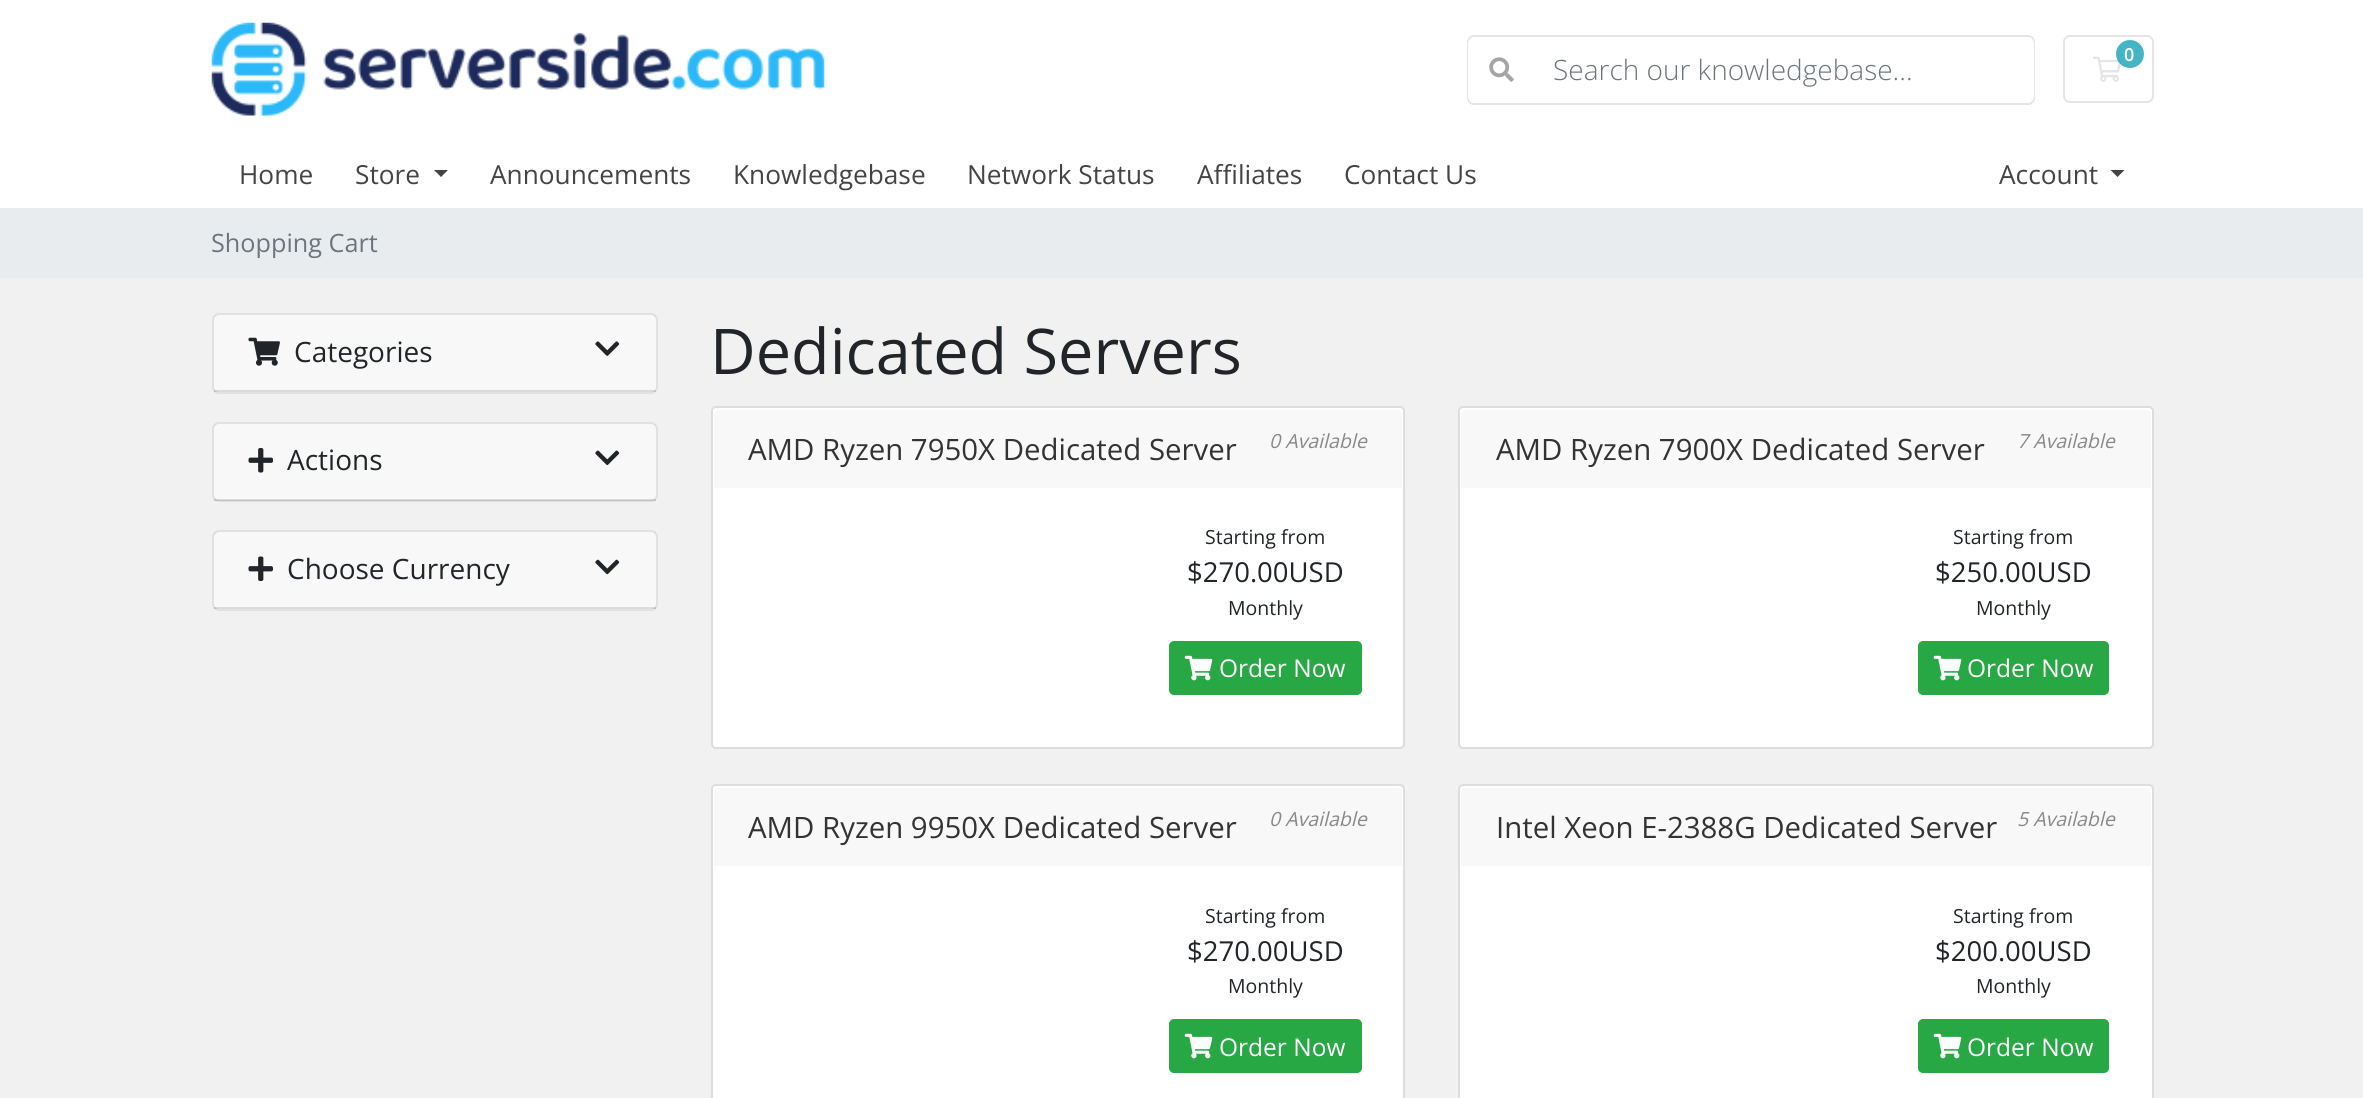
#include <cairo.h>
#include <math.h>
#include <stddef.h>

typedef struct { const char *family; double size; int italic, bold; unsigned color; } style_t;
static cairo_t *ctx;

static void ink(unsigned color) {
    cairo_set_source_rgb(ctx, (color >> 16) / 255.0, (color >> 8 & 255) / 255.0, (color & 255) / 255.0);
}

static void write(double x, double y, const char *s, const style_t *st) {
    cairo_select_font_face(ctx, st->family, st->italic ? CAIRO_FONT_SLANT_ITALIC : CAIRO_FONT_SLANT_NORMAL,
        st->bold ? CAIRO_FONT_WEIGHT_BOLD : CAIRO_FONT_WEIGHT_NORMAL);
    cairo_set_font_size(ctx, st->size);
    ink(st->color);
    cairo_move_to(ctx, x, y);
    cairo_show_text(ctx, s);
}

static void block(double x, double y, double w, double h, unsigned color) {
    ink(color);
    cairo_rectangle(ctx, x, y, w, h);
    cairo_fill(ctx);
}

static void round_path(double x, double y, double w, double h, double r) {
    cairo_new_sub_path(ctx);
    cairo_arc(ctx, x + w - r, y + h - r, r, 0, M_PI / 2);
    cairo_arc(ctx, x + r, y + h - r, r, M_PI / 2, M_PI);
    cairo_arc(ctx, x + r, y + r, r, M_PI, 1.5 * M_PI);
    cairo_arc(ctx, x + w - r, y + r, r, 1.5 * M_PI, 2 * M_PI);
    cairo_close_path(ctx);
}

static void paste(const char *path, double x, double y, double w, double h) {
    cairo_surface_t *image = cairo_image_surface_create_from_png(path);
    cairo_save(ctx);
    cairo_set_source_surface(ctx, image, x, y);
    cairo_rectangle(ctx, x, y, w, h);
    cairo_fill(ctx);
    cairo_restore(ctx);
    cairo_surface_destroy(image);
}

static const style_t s1 = {"Open Sans SemiBold", 18, 0, 0, 0xffffff};
static const style_t s2 = {"Open Sans Light", 28, 0, 0, 0x6c757d};
static const style_t s3 = {"Open Sans", 26.25, 0, 0, 0x444444};
static const style_t s4 = {"Open Sans", 25.25, 0, 0, 0x6c757d};
static const style_t s5 = {"Open Sans", 28, 0, 0, 0x212529};
static const style_t s6 = {"Open Sans", 63, 0, 0, 0x212529};
static const style_t s7 = {"Open Sans", 29.4, 0, 0, 0x333333};
static const style_t s8 = {"Open Sans", 19.5, 1, 0, 0x888888};
static const style_t s9 = {"Open Sans", 19.5, 0, 0, 0x212529};
static const style_t s10 = {"Open Sans", 27.5, 0, 0, 0x212529};
static const style_t s11 = {"Open Sans", 24.5, 0, 0, 0xffffff};

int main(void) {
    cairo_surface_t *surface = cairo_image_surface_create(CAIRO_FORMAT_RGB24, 2363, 1098);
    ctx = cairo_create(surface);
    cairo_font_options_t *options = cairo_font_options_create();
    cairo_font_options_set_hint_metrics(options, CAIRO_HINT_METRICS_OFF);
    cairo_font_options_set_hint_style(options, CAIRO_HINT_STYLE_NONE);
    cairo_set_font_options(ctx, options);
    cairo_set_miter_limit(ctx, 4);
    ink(0xf1f1f1);
    cairo_paint(ctx);
    block(0, 0, 2363, 208, 0xffffff);
    paste("pic1.png", 211, 22, 614, 94);
    round_path(2064, 36, 89, 66, 6);
    ink(0xe5e5e5);
    cairo_stroke(ctx);
    paste("pic2.png", 2093, 56, 29, 26);
    cairo_set_source_rgba(ctx, 0.09, 0.635, 0.722, 0.8);
    cairo_arc(ctx, 2130, 54, 14, 0, 2 * M_PI);
    cairo_fill(ctx);
    write(2124, 61, "0", &s1);
    round_path(1468, 36, 566, 68, 6);
    ink(0xe5e5e5);
    cairo_stroke(ctx);
    ink(0xffffff);
    cairo_new_path(ctx);
    cairo_move_to(ctx, 1533, 37);
    cairo_line_to(ctx, 2027, 37);
    cairo_curve_to(ctx, 2031, 37, 2034, 40, 2034, 44);
    cairo_line_to(ctx, 2034, 96);
    cairo_curve_to(ctx, 2034, 100, 2031, 103, 2027, 103);
    cairo_line_to(ctx, 1533, 103);
    cairo_close_path(ctx);
    cairo_fill(ctx);
    cairo_new_path(ctx);
    cairo_move_to(ctx, 1475, 37);
    cairo_line_to(ctx, 1535, 37);
    cairo_line_to(ctx, 1535, 103);
    cairo_line_to(ctx, 1475, 103);
    cairo_curve_to(ctx, 1471, 103, 1468, 100, 1468, 96);
    cairo_line_to(ctx, 1468, 44);
    cairo_curve_to(ctx, 1468, 40, 1471, 37, 1475, 37);
    cairo_close_path(ctx);
    cairo_fill(ctx);
    paste("pic3.png", 1489, 57, 25, 25);
    write(1553, 80, "Search our knowledgebase...", &s2);
    write(239, 184, "Home", &s3);
    write(355, 184, "Store", &s3);
    cairo_new_path(ctx);
    cairo_move_to(ctx, 434, 170);
    cairo_line_to(ctx, 448, 170);
    cairo_line_to(ctx, 441, 177);
    cairo_close_path(ctx);
    cairo_fill(ctx);
    write(490, 184, "Announcements", &s3);
    write(733, 184, "Knowledgebase", &s3);
    write(967, 184, "Network Status", &s3);
    write(1197, 184, "Affiliates", &s3);
    write(1344, 184, "Contact Us", &s3);
    write(1999, 184, "Account", &s3);
    cairo_new_path(ctx);
    cairo_move_to(ctx, 2110.5, 170);
    cairo_line_to(ctx, 2124.5, 170);
    cairo_line_to(ctx, 2117.5, 177);
    cairo_close_path(ctx);
    cairo_fill(ctx);
    block(0, 208, 2363, 70, 0xe9ecef);
    write(211, 252, "Shopping Cart", &s4);
    ink(0xffffff);
    round_path(212, 313, 446, 81, 7);
    cairo_fill(ctx);
    round_path(213, 314, 444, 79, 6);
    cairo_set_source_rgba(ctx, 0, 0, 0, 0.12);
    cairo_stroke(ctx);
    cairo_set_source_rgba(ctx, 0, 0, 0, 0.03);
    cairo_rectangle(ctx, 214, 315, 442, 77);
    cairo_fill(ctx);
    cairo_set_source_rgba(ctx, 0, 0, 0, 0.12);
    cairo_rectangle(ctx, 214, 390, 442, 2);
    cairo_fill(ctx);
    paste("pic4.png", 248, 337, 32, 29);
    write(294, 362, "Categories", &s5);
    paste("pic5.png", 595, 341, 25, 15);
    ink(0xffffff);
    round_path(212, 422, 446, 80, 7);
    cairo_fill(ctx);
    round_path(213, 423, 444, 78, 6);
    cairo_set_source_rgba(ctx, 0, 0, 0, 0.12);
    cairo_stroke(ctx);
    cairo_set_source_rgba(ctx, 0, 0, 0, 0.03);
    cairo_rectangle(ctx, 214, 424, 442, 77);
    cairo_fill(ctx);
    cairo_set_source_rgba(ctx, 0, 0, 0, 0.12);
    cairo_rectangle(ctx, 214, 499, 442, 2);
    cairo_fill(ctx);
    paste("pic6.png", 248, 448, 25, 25);
    write(287, 470, "Actions", &s5);
    paste("pic7.png", 595, 450, 25, 15);
    ink(0xffffff);
    round_path(212, 530, 446, 81, 7);
    cairo_fill(ctx);
    round_path(213, 531, 444, 79, 6);
    cairo_set_source_rgba(ctx, 0, 0, 0, 0.12);
    cairo_stroke(ctx);
    cairo_set_source_rgba(ctx, 0, 0, 0, 0.03);
    cairo_rectangle(ctx, 214, 532, 442, 77);
    cairo_fill(ctx);
    cairo_set_source_rgba(ctx, 0, 0, 0, 0.12);
    cairo_rectangle(ctx, 214, 607, 442, 2);
    cairo_fill(ctx);
    paste("pic8.png", 248, 556, 25, 25);
    write(287, 579, "Choose Currency", &s5);
    paste("pic9.png", 595, 559, 25, 16);
    write(710, 374, "Dedicated Servers", &s6);
    ink(0xffffff);
    round_path(712, 407, 692, 341, 4);
    cairo_fill_preserve(ctx);
    ink(0xdddddd);
    cairo_stroke(ctx);
    ink(0xf8f8f8);
    cairo_new_path(ctx);
    cairo_move_to(ctx, 719, 410);
    cairo_line_to(ctx, 1397, 410);
    cairo_curve_to(ctx, 1400, 410, 1402, 412, 1402, 415);
    cairo_line_to(ctx, 1402, 488);
    cairo_line_to(ctx, 714, 488);
    cairo_line_to(ctx, 714, 415);
    cairo_curve_to(ctx, 714, 412, 716, 410, 719, 410);
    cairo_close_path(ctx);
    cairo_fill(ctx);
    write(748, 460, "AMD Ryzen 7950X Dedicated Server", &s7);
    write(1269, 448, "0 Available", &s8);
    write(1205, 544, "Starting from", &s9);
    write(1187, 582, "$270.00USD", &s10);
    write(1228, 615, "Monthly", &s9);
    ink(0x28a745);
    round_path(1170, 642, 191, 52, 4);
    cairo_fill_preserve(ctx);
    cairo_stroke(ctx);
    paste("pic10.png", 1184, 655, 29, 26);
    write(1219, 677, "Order Now", &s11);
    round_path(1459, 407, 694, 341, 4);
    cairo_fill_preserve(ctx);
    ink(0xdddddd);
    cairo_stroke(ctx);
    ink(0xf8f8f8);
    cairo_new_path(ctx);
    cairo_move_to(ctx, 1466, 410);
    cairo_line_to(ctx, 2146, 410);
    cairo_curve_to(ctx, 2149, 410, 2151, 412, 2151, 415);
    cairo_line_to(ctx, 2151, 488);
    cairo_line_to(ctx, 1461, 488);
    cairo_line_to(ctx, 1461, 415);
    cairo_curve_to(ctx, 1461, 412, 1463, 410, 1466, 410);
    cairo_close_path(ctx);
    cairo_fill(ctx);
    write(1496, 460, "AMD Ryzen 7900X Dedicated Server", &s7);
    write(2017, 448, "7 Available", &s8);
    write(1953, 544, "Starting from", &s9);
    write(1935, 582, "$250.00USD", &s10);
    write(1976, 615, "Monthly", &s9);
    ink(0x28a745);
    round_path(1919, 642, 189, 52, 4);
    cairo_fill_preserve(ctx);
    cairo_stroke(ctx);
    paste("pic10.png", 1933, 655, 29, 26);
    write(1967, 677, "Order Now", &s11);
    round_path(712, 785, 692, 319, 4);
    cairo_fill_preserve(ctx);
    ink(0xdddddd);
    cairo_stroke(ctx);
    ink(0xf8f8f8);
    cairo_new_path(ctx);
    cairo_move_to(ctx, 719, 788);
    cairo_line_to(ctx, 1397, 788);
    cairo_curve_to(ctx, 1400, 788, 1402, 790, 1402, 793);
    cairo_line_to(ctx, 1402, 866);
    cairo_line_to(ctx, 714, 866);
    cairo_line_to(ctx, 714, 793);
    cairo_curve_to(ctx, 714, 790, 716, 788, 719, 788);
    cairo_close_path(ctx);
    cairo_fill(ctx);
    write(748, 838, "AMD Ryzen 9950X Dedicated Server", &s7);
    write(1269, 826, "0 Available", &s8);
    write(1205, 923, "Starting from", &s9);
    write(1187, 961, "$270.00USD", &s10);
    write(1228, 993, "Monthly", &s9);
    ink(0x28a745);
    round_path(1170, 1020, 191, 52, 4);
    cairo_fill_preserve(ctx);
    cairo_stroke(ctx);
    paste("pic10.png", 1184, 1033, 29, 26);
    write(1219, 1056, "Order Now", &s11);
    round_path(1459, 785, 694, 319, 4);
    cairo_fill_preserve(ctx);
    ink(0xdddddd);
    cairo_stroke(ctx);
    ink(0xf8f8f8);
    cairo_new_path(ctx);
    cairo_move_to(ctx, 1466, 788);
    cairo_line_to(ctx, 2146, 788);
    cairo_curve_to(ctx, 2149, 788, 2151, 790, 2151, 793);
    cairo_line_to(ctx, 2151, 866);
    cairo_line_to(ctx, 1461, 866);
    cairo_line_to(ctx, 1461, 793);
    cairo_curve_to(ctx, 1461, 790, 1463, 788, 1466, 788);
    cairo_close_path(ctx);
    cairo_fill(ctx);
    write(1496, 838, "Intel Xeon E-2388G Dedicated Server", &s7);
    write(2017, 826, "5 Available", &s8);
    write(1953, 923, "Starting from", &s9);
    write(1935, 961, "$200.00USD", &s10);
    write(1976, 993, "Monthly", &s9);
    ink(0x28a745);
    round_path(1919, 1020, 189, 52, 4);
    cairo_fill_preserve(ctx);
    cairo_stroke(ctx);
    paste("pic10.png", 1933, 1033, 29, 26);
    write(1967, 1056, "Order Now", &s11);
    cairo_surface_write_to_png(surface, "screenshot.png");
    cairo_font_options_destroy(options);
    cairo_destroy(ctx);
    cairo_surface_destroy(surface);
    return 0;
}
